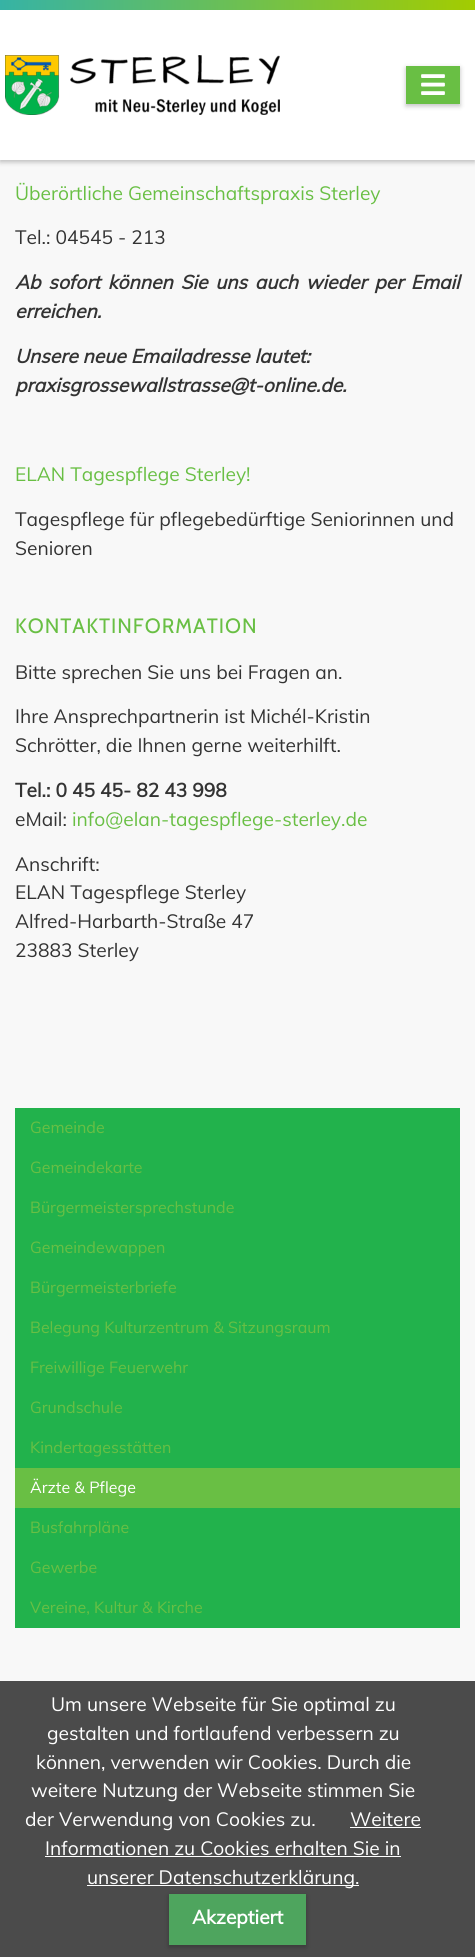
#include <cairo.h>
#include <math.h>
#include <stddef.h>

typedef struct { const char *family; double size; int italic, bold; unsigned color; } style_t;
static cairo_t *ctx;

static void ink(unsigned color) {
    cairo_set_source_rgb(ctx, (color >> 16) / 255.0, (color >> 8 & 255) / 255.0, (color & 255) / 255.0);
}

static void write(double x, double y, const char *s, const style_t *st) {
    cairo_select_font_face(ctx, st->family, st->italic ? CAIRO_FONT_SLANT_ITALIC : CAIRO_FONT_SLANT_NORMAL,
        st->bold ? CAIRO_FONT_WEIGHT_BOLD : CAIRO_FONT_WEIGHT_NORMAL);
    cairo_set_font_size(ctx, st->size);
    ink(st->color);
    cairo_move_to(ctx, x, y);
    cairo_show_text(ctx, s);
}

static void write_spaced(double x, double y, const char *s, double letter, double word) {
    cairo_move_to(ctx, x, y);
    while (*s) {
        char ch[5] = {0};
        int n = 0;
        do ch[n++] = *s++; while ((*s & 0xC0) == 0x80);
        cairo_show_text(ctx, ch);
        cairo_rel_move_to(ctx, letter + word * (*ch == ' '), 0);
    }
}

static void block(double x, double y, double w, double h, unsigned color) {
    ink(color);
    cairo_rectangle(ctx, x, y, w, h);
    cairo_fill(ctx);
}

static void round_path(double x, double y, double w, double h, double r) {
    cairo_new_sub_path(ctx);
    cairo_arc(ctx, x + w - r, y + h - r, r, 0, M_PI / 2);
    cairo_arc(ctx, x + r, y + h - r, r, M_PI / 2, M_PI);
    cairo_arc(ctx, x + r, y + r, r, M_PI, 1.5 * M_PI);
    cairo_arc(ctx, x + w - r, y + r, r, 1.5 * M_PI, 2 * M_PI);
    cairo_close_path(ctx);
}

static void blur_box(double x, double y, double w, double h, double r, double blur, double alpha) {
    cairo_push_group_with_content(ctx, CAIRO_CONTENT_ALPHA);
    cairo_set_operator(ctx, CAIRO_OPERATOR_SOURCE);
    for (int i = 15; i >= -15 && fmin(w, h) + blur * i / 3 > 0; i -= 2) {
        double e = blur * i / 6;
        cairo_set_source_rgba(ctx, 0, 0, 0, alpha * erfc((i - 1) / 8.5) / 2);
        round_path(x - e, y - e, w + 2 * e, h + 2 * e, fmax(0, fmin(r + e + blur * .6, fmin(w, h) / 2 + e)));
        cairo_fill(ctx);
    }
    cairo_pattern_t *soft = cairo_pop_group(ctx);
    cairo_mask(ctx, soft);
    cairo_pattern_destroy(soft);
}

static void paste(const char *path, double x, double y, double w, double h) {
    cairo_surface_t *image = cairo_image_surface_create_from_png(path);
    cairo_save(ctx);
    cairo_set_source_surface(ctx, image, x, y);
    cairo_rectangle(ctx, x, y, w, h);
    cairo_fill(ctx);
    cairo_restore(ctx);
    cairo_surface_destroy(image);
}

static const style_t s1 = {"Muli", 19.2, 0, 0, 0x69bf44};
static const style_t s2 = {"Muli", 19.2, 0, 0, 0x333333};
static const style_t s3 = {"Muli", 19.2, 1, 1, 0x333333};
static const style_t s4 = {"Muli", 19.2, 0, 1, 0x333333};
static const style_t s5 = {"Muli", 16, 0, 0, 0x69bf44};
static const style_t s6 = {"Muli", 16, 0, 0, 0xffffff};
static const style_t s7 = {"Muli", 19.2, 0, 0, 0xffffff};
static const style_t s8 = {"Muli", 19.2, 0, 1, 0xffffff};

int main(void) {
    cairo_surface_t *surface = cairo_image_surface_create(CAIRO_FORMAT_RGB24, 475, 1957);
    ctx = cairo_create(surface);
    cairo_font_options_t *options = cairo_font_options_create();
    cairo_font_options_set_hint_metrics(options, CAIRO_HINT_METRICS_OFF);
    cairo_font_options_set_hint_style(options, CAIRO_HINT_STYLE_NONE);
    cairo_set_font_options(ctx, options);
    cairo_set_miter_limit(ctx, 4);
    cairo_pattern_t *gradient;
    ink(0xf8f8f8);
    cairo_paint(ctx);
    ink(0x000000);
    blur_box(0, 2, 475, 160, 0, 2.5, 0.25);
    gradient = cairo_pattern_create_linear(0, 5, 475, 5);
    cairo_pattern_add_color_stop_rgba(gradient, 0, 0.212, 0.702, 0.647, 1);
    cairo_pattern_add_color_stop_rgba(gradient, 1, 0.639, 0.8, 0, 1);
    cairo_set_source(ctx, gradient);
    cairo_pattern_destroy(gradient);
    cairo_rectangle(ctx, 0, 0, 475, 10);
    cairo_fill(ctx);
    block(0, 10, 475, 150, 0xffffff);
    paste("pic1.png", 5, 55, 275, 60);
    ink(0x000000);
    blur_box(406, 68, 54, 38, 0, 2.5, 0.25);
    block(406, 66, 54, 38, 0x69bf44);
    paste("pic2.png", 421, 74, 24, 21);
    write(15, 200, "Überörtliche Gemeinschaftspraxis Sterley", &s1);
    write(15, 244, "Tel.: 04545 - 213", &s2);
    cairo_select_font_face(ctx, "Muli", CAIRO_FONT_SLANT_ITALIC, CAIRO_FONT_WEIGHT_BOLD);
    write_spaced(15, 289, "Ab sofort können Sie uns auch wieder per Email", 0, 2.75);
    write(15, 318, "erreichen.", &s3);
    write(15, 363, "Unsere neue Emailadresse lautet:", &s3);
    write(15, 392, "praxisgrossewallstrasse@t-online.de.", &s3);
    write(15, 481, "ELAN Tagespflege Sterley!", &s1);
    write(15, 526, "Tagespflege für pflegebedürftige Seniorinnen und", &s2);
    write(15, 555, "Senioren", &s2);
    cairo_select_font_face(ctx, "Cabin", CAIRO_FONT_SLANT_NORMAL, CAIRO_FONT_WEIGHT_NORMAL);
    cairo_set_font_size(ctx, 20.75);
    ink(0x69bf44);
    write_spaced(15, 633, "KONTAKTINFORMATION", 1, 0);
    write(15, 679, "Bitte sprechen Sie uns bei Fragen an.", &s2);
    write(15, 723, "Ihre Ansprechpartnerin ist Michél-Kristin", &s2);
    write(15, 752, "Schrötter, die Ihnen gerne weiterhilft.", &s2);
    write(15, 797, "Tel.: 0 45 45- 82 43 998", &s4);
    write(15, 826, "eMail:", &s2);
    write(72, 826, "info@elan-tagespflege-sterley.de", &s1);
    write(15, 871, "Anschrift:", &s2);
    write(15, 899, "ELAN Tagespflege Sterley", &s2);
    write(15, 928, "Alfred-Harbarth-Straße 47", &s2);
    write(15, 957, "23883 Sterley", &s2);
    block(15, 1108, 445, 520, 0x22b24c);
    write(30, 1133, "Gemeinde", &s5);
    write(30, 1173, "Gemeindekarte", &s5);
    write(30, 1213, "Bürgermeistersprechstunde", &s5);
    write(30, 1253, "Gemeindewappen", &s5);
    write(30, 1293, "Bürgermeisterbriefe", &s5);
    write(30, 1333, "Belegung Kulturzentrum & Sitzungsraum", &s5);
    write(30, 1373, "Freiwillige Feuerwehr", &s5);
    write(30, 1413, "Grundschule", &s5);
    write(30, 1453, "Kindertagesstätten", &s5);
    block(15, 1468, 445, 40, 0x69bf44);
    write(30, 1493, "Ärzte & Pflege", &s6);
    write(30, 1533, "Busfahrpläne", &s5);
    write(30, 1573, "Gewerbe", &s5);
    write(30, 1613, "Vereine, Kultur & Kirche", &s5);
    block(0, 1681, 475, 276, 0x4b4b4b);
    write(51, 1711, "Um unsere Webseite für Sie optimal zu", &s7);
    write(47, 1740, "gestalten und fortlaufend verbessern zu", &s7);
    write(36, 1769, "können, verwenden wir Cookies. Durch die", &s7);
    write(31, 1797, "weitere Nutzung der Webseite stimmen Sie", &s7);
    write(25, 1826, "der Verwendung von Cookies zu.", &s7);
    write(350, 1826, "Weitere", &s7);
    block(350, 1827, 71, 1, 0xffffff);
    write(45, 1855, "Informationen zu Cookies erhalten Sie in", &s7);
    block(45, 1856, 356, 1, 0xffffff);
    block(87, 1885, 272, 1, 0xffffff);
    write(87, 1884, "unserer Datenschutzerklärung.", &s7);
    ink(0x000000);
    blur_box(169, 1896, 137, 51, 0, 2.5, 0.25);
    block(169, 1894, 137, 51, 0x4ea55e);
    write(192, 1924, "Akzeptiert", &s8);
    cairo_surface_write_to_png(surface, "screenshot.png");
    cairo_font_options_destroy(options);
    cairo_destroy(ctx);
    cairo_surface_destroy(surface);
    return 0;
}
